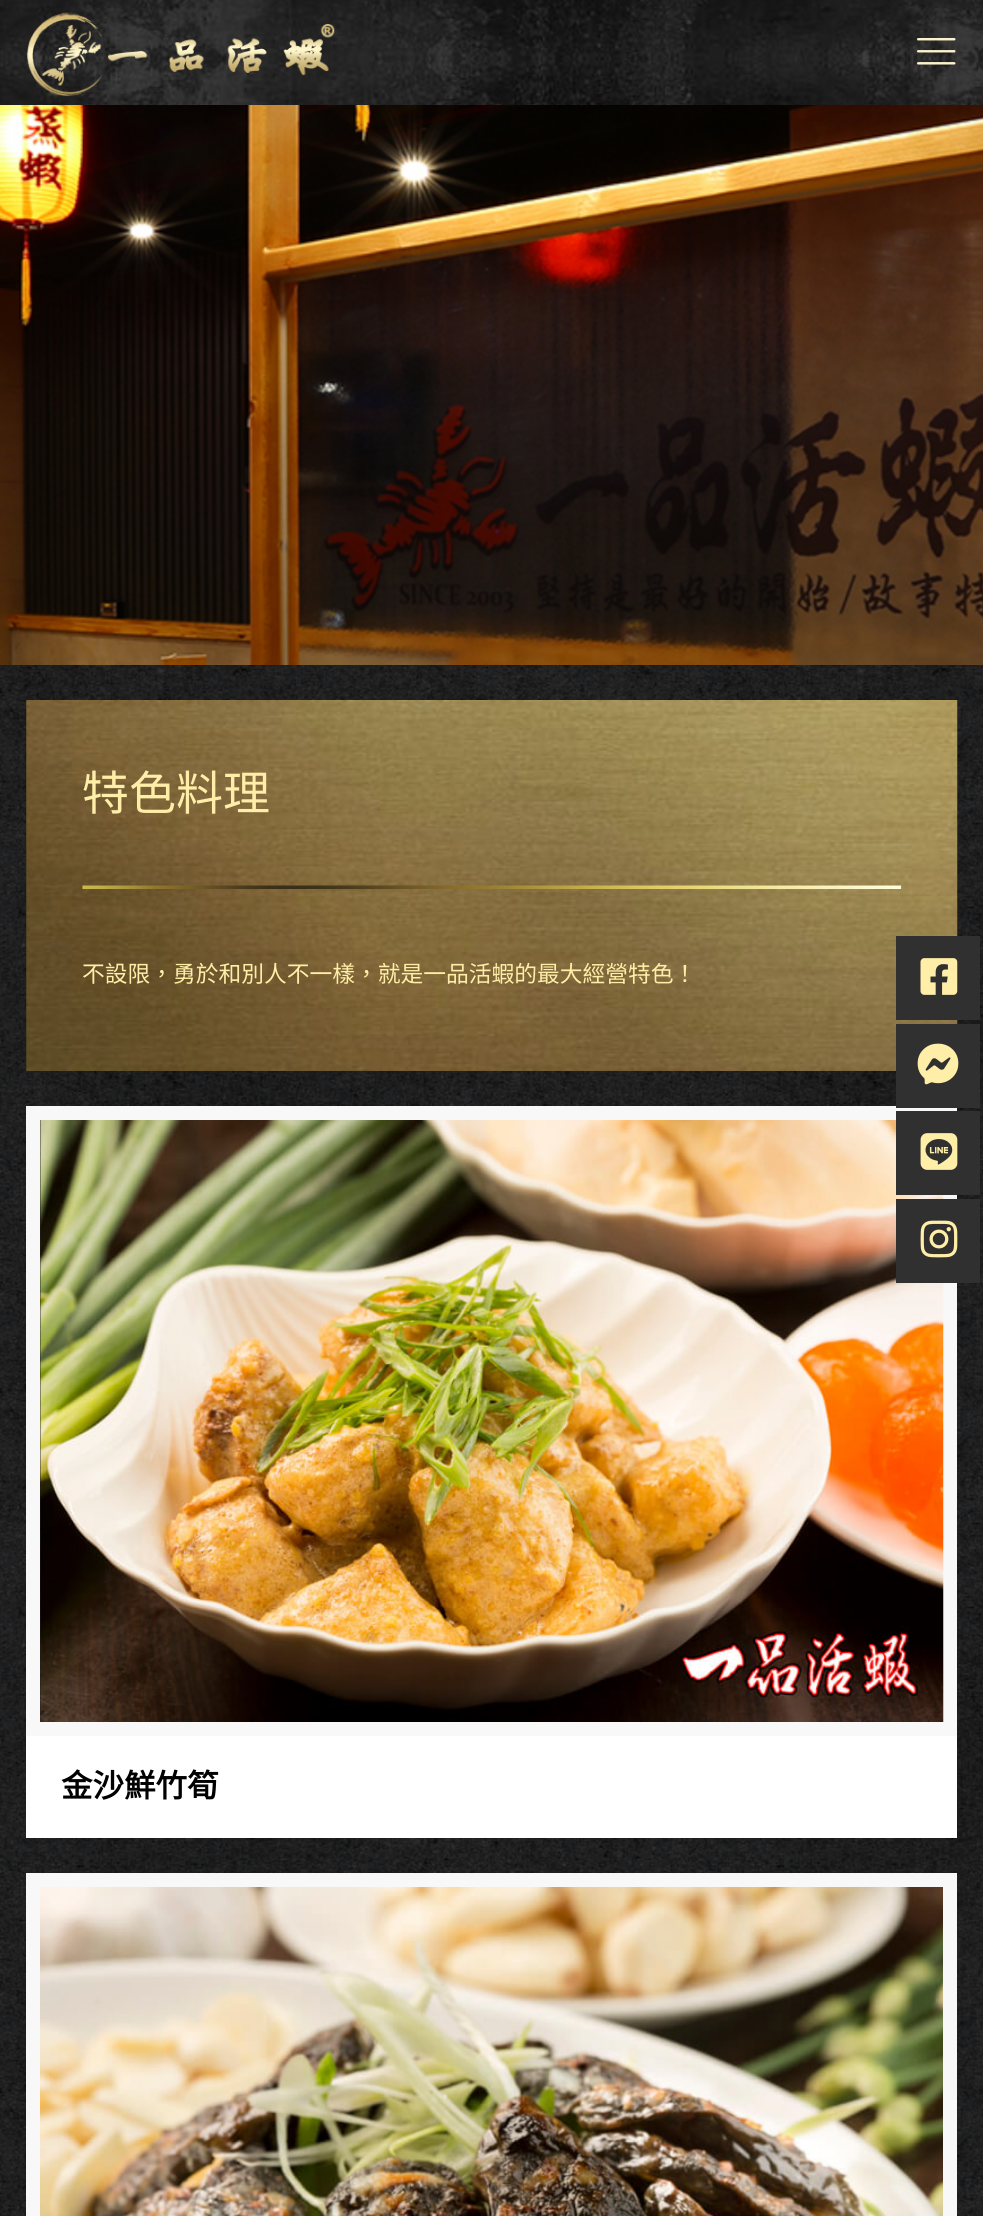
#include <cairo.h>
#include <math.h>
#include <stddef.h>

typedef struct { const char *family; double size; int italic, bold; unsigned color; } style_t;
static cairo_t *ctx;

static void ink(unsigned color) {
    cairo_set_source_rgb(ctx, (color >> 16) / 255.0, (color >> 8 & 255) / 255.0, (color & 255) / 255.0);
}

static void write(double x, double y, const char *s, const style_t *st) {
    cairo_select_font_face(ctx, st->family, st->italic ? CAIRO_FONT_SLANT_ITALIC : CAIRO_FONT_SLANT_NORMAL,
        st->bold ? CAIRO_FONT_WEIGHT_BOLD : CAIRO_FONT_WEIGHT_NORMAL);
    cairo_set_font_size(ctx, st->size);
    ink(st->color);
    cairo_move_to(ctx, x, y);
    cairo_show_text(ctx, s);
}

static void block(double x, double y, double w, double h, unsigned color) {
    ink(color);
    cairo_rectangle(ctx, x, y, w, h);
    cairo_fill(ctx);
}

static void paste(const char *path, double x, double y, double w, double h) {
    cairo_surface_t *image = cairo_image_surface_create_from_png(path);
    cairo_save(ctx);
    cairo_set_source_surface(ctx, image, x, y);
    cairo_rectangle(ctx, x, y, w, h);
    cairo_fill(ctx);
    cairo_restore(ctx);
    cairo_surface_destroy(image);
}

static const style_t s1 = {"Noto Sans CJK TC", 47, 0, 0, 0xffeea7};
static const style_t s2 = {"Noto Sans CJK TC", 22.75, 0, 0, 0xffeea7};
static const style_t s3 = {"Noto Sans CJK TC", 31.5, 0, 1, 0x000000};

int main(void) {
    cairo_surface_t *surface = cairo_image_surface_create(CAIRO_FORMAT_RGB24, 983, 2216);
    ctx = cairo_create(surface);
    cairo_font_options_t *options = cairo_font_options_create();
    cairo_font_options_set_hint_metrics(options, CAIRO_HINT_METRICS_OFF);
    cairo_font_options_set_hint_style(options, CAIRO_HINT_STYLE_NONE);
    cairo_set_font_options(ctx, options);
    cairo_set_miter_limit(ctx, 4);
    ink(0xffffff);
    cairo_paint(ctx);
    paste("pic1.png", 0, 665, 983, 1551);
    paste("pic2.png", 0, 0, 983, 105);
    paste("pic3.png", 27, 12, 308, 85);
    paste("pic4.png", 917, 38, 39, 27);
    paste("pic5.png", 0, 105, 983, 560);
    paste("pic6.png", 26, 700, 932, 371);
    write(82, 810, "特色料理", &s1);
    paste("pic7.png", 82, 885, 820, 4);
    write(82, 982, "不設限，勇於和別人不一樣，就是一品活蝦的最大經營特色！", &s2);
    cairo_rectangle(ctx, 33, 1113, 917, 616);
    ink(0xf8f8f8);
    cairo_set_line_width(ctx, 14);
    cairo_stroke(ctx);
    paste("pic8.png", 40, 1120, 904, 602);
    block(26, 1736, 931, 102, 0xffffff);
    write(61, 1797, "金沙鮮竹筍", &s3);
    cairo_rectangle(ctx, 33, 1880, 917, 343);
    ink(0xf8f8f8);
    cairo_stroke(ctx);
    paste("pic9.png", 40, 1887, 903, 329);
    block(896, 936, 84, 84, 0x303030);
    paste("pic10.png", 920, 958, 38, 37);
    block(896, 1024, 84, 84, 0x303030);
    paste("pic11.png", 917, 1043, 42, 42);
    block(896, 1111, 84, 84, 0x303030);
    paste("pic12.png", 920, 1133, 38, 37);
    block(896, 1199, 84, 84, 0x303030);
    paste("pic13.png", 920, 1220, 38, 38);
    cairo_surface_write_to_png(surface, "screenshot.png");
    cairo_font_options_destroy(options);
    cairo_destroy(ctx);
    cairo_surface_destroy(surface);
    return 0;
}
